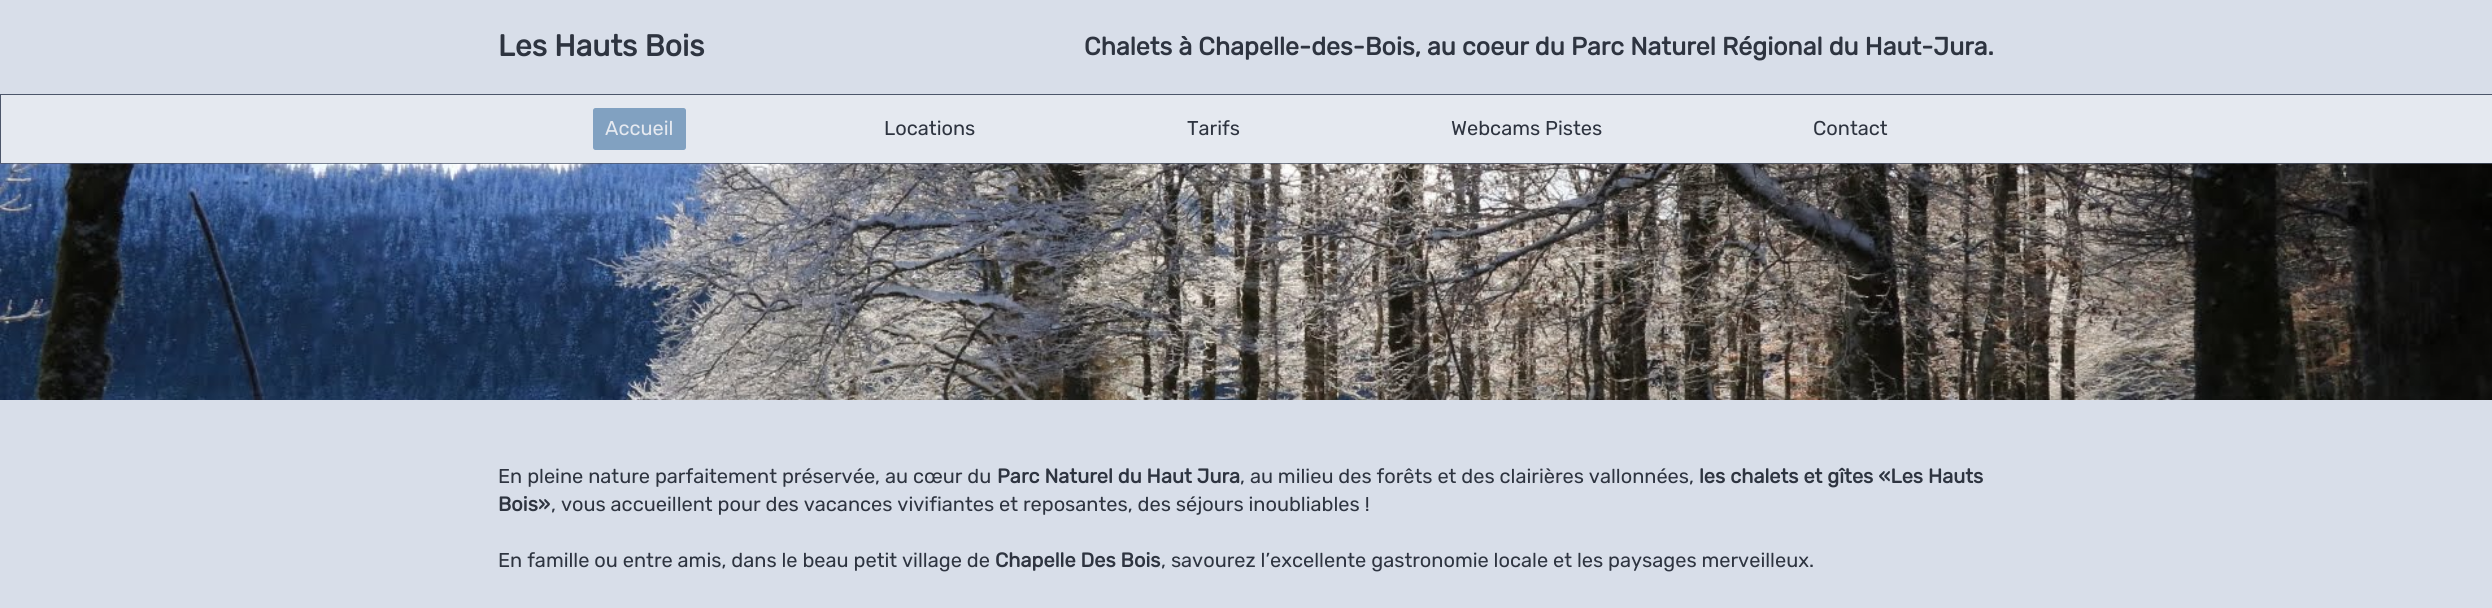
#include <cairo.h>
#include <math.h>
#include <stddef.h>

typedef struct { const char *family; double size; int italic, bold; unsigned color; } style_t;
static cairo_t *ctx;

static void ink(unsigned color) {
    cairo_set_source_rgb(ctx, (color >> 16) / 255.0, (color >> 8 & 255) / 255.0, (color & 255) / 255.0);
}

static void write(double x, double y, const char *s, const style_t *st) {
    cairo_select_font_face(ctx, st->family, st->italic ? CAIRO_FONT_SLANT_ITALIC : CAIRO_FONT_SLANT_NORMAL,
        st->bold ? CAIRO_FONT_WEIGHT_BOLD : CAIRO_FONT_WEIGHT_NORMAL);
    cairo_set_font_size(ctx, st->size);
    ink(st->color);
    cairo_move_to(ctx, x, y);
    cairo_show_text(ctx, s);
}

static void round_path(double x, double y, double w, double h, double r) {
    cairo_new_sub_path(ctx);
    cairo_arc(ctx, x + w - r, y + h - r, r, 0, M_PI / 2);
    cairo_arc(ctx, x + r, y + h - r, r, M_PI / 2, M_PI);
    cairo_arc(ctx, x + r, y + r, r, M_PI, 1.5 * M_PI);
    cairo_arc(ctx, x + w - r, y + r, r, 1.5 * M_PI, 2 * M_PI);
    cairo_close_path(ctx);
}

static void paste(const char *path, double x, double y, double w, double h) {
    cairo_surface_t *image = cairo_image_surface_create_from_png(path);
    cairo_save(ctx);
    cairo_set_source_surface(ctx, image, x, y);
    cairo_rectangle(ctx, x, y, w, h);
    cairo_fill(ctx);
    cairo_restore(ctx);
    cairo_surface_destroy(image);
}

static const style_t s1 = {"Rubik", 30, 0, 1, 0x2e3440};
static const style_t s2 = {"Rubik", 25, 0, 1, 0x2e3440};
static const style_t s3 = {"Rubik Light", 20, 0, 0, 0xe5e9f0};
static const style_t s4 = {"Rubik Light", 20, 0, 0, 0x2e3440};
static const style_t s5 = {"Rubik", 20, 0, 1, 0x2e3440};

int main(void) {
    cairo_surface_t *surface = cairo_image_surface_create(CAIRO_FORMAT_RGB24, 2492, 608);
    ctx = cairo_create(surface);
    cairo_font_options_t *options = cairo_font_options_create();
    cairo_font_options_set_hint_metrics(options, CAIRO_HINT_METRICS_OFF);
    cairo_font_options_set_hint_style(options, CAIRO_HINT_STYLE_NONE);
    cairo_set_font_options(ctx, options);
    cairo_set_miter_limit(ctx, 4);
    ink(0xd8dee9);
    cairo_paint(ctx);
    write(498, 56, "Les Hauts Bois", &s1);
    write(1084, 55, "Chalets à Chapelle-des-Bois, au coeur du Parc Naturel Régional du Haut-Jura.", &s2);
    ink(0xe5e9f0);
    cairo_rectangle(ctx, 0.5, 94.5, 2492, 69);
    cairo_fill_preserve(ctx);
    ink(0x4c566a);
    cairo_set_line_width(ctx, 1);
    cairo_stroke(ctx);
    ink(0x81a1c1);
    round_path(593, 108, 93, 42, 2.5);
    cairo_fill(ctx);
    write(605, 135, "Accueil", &s3);
    write(884, 135, "Locations", &s4);
    write(1187, 135, "Tarifs", &s4);
    write(1451, 135, "Webcams Pistes", &s4);
    write(1813, 135, "Contact", &s4);
    paste("pic1.png", 0, 163, 2492, 237);
    write(498, 483, "En pleine nature parfaitement préservée, au cœur du", &s4);
    write(997, 483, "Parc Naturel du Haut Jura", &s5);
    write(1240, 483, ", au milieu des forêts et des clairières vallonnées,", &s4);
    write(1699, 483, "les chalets et gîtes «Les Hauts", &s5);
    write(498, 511, "Bois»", &s5);
    write(551, 511, ", vous accueillent pour des vacances vivifiantes et reposantes, des séjours inoubliables !", &s4);
    write(498, 567, "En famille ou entre amis, dans le beau petit village de", &s4);
    write(995, 567, "Chapelle Des Bois", &s5);
    write(1161, 567, ", savourez l’excellente gastronomie locale et les paysages merveilleux.", &s4);
    cairo_surface_write_to_png(surface, "screenshot.png");
    cairo_font_options_destroy(options);
    cairo_destroy(ctx);
    cairo_surface_destroy(surface);
    return 0;
}
